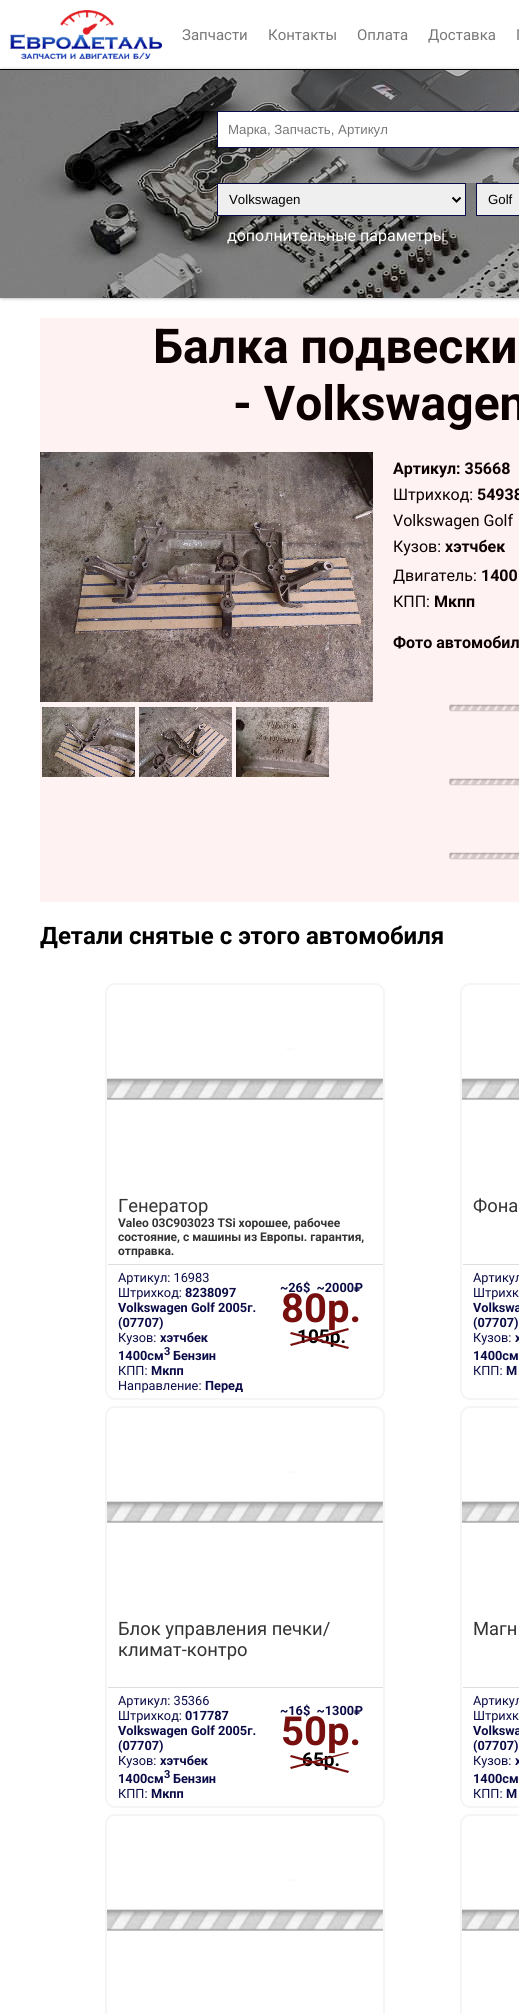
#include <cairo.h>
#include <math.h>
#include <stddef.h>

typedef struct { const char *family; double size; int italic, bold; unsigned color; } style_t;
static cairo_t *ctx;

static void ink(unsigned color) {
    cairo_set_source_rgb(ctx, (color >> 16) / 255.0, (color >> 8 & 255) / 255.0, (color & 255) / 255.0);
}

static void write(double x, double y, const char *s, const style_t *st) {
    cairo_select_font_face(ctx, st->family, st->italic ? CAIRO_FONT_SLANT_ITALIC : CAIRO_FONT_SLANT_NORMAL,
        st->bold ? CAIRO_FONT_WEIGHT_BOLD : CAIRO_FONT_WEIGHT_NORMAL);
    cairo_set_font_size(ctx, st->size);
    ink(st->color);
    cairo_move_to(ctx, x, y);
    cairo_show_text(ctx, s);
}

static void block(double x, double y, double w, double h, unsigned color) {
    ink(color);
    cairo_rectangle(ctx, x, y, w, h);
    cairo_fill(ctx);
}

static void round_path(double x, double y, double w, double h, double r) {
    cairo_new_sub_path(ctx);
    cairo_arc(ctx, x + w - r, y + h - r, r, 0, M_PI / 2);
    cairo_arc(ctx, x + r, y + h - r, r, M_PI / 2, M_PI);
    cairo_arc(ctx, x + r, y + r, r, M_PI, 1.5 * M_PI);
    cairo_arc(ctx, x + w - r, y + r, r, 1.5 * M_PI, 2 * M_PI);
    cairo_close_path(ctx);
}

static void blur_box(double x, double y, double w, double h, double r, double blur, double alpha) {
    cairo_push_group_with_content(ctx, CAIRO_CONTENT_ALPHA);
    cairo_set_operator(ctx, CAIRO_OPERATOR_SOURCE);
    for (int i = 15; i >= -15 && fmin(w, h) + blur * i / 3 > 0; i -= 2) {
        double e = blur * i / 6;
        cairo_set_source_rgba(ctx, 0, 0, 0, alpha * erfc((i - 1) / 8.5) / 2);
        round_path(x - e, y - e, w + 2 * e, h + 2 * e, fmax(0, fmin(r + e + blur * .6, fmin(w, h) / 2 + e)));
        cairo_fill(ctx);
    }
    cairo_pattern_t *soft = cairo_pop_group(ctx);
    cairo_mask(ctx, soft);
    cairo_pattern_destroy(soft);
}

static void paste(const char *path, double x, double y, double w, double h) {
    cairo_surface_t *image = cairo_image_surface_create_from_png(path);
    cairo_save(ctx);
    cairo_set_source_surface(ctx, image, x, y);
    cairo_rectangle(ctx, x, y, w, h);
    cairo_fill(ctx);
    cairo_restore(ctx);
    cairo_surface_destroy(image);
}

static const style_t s1 = {"Roboto", 15, 0, 0, 0x777777};
static const style_t s2 = {"Liberation Sans", 13.25, 0, 0, 0x777777};
static const style_t s3 = {"Liberation Sans", 13.25, 0, 0, 0x000000};
static const style_t s4 = {"Roboto", 16, 0, 0, 0xffffff};
static const style_t s5 = {"Roboto", 48, 0, 1, 0x0d0000};
static const style_t s6 = {"Roboto", 16, 0, 1, 0x0d0000};
static const style_t s7 = {"Roboto", 16, 0, 0, 0x0d0000};
static const style_t s8 = {"Roboto", 24, 0, 1, 0x000000};
static const style_t s9 = {"Roboto", 18.4, 0, 0, 0x333333};
static const style_t s10 = {"Roboto", 12, 0, 1, 0x333333};
static const style_t s11 = {"Roboto", 12.75, 0, 0, 0x0a0b46};
static const style_t s12 = {"Roboto", 12.75, 0, 1, 0x0a0b46};
static const style_t s13 = {"Roboto", 11, 0, 1, 0x0a0b46};
static const style_t s14 = {"Roboto", 40, 0, 1, 0x780f0f};
static const style_t s15 = {"Roboto", 19, 0, 1, 0x000000};

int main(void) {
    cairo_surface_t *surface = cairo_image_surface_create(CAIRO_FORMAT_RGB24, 519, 2014);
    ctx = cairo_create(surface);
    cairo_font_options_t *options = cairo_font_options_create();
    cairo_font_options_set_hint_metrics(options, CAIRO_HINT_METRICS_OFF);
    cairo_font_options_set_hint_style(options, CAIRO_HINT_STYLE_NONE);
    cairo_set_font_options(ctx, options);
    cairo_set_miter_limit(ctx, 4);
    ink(0xffffff);
    cairo_paint(ctx);
    block(40, 318, 479, 584, 0xfff2f2);
    paste("pic1.png", 10, 10, 152, 49);
    write(182, 40, "Запчасти", &s1);
    write(268, 40, "Контакты", &s1);
    write(357, 40, "Оплата", &s1);
    write(428, 40, "Доставка", &s1);
    write(516, 40, "Г", &s1);
    block(0, 69, 519, 1, 0x000000);
    ink(0x000000);
    blur_box(2, 72, 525, 224, 0, 2.5, 1);
    paste("pic2.png", 0, 70, 519, 228);
    block(218, 112, 301, 35, 0xffffff);
    block(217, 111, 302, 1, 0x0a0b46);
    block(217, 147, 302, 1, 0x0a0b46);
    block(217, 111, 1, 37, 0x0a0b46);
    write(228, 134, "Марка, Запчасть, Артикул", &s2);
    ink(0xefefef);
    cairo_rectangle(ctx, 217.5, 183.5, 248, 32);
    cairo_fill_preserve(ctx);
    ink(0x0a0b46);
    cairo_set_line_width(ctx, 1);
    cairo_stroke(ctx);
    cairo_new_path(ctx);
    cairo_move_to(ctx, 452.5, 197.5);
    cairo_line_to(ctx, 456.5, 201.5);
    cairo_line_to(ctx, 460.5, 197.5);
    ink(0x000000);
    cairo_set_line_width(ctx, 2);
    cairo_stroke(ctx);
    write(229, 204, "Volkswagen", &s3);
    ink(0xefefef);
    cairo_rectangle(ctx, 476.5, 183.5, 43, 32);
    cairo_fill_preserve(ctx);
    ink(0x0a0b46);
    cairo_set_line_width(ctx, 1);
    cairo_stroke(ctx);
    write(488, 204, "Golf", &s3);
    write(227, 241, "дополнительные параметры", &s4);
    write(153, 363, "Балка подвески", &s5);
    write(233, 420, "- Volkswagen", &s5);
    paste("pic3.png", 40, 452, 333, 250);
    paste("pic4.png", 42, 707, 93, 70);
    paste("pic5.png", 139, 707, 93, 70);
    paste("pic6.png", 236, 707, 93, 70);
    write(393, 474, "Артикул", &s6);
    write(456, 474, ": 35668", &s6);
    write(393, 500, "Штрихкод:", &s7);
    write(477, 500, "54938", &s6);
    write(393, 526, "Volkswagen Golf", &s7);
    write(393, 552, "Кузов:", &s7);
    write(445, 552, "хэтчбек", &s6);
    write(393, 581, "Двигатель:", &s7);
    write(481, 581, "1400", &s6);
    write(393, 607, "КПП:", &s7);
    write(434, 607, "Мкпп", &s6);
    write(393, 648, "Фото автомобил", &s6);
    paste("pic7.png", 449, 704, 70, 8);
    paste("pic7.png", 449, 778, 70, 8);
    paste("pic8.png", 449, 852, 70, 8);
    write(40, 944, "Детали снятые с этого автомобиля", &s8);
    round_path(106, 984, 278, 415, 9);
    ink(0xf5f5f5);
    cairo_set_line_width(ctx, 2);
    cairo_stroke(ctx);
    paste("pic9.png", 107, 1048, 276, 52);
    block(108, 1264, 275, 1, 0xdddddd);
    write(118, 1212, "Генератор", &s9);
    write(118, 1227, "Valeo 03C903023 TSi хорошее, рабочее", &s10);
    write(118, 1241, "состояние, с машины из Европы. гарантия,", &s10);
    write(118, 1255, "отправка.", &s10);
    write(118, 1282, "Артикул: 16983", &s11);
    write(118, 1297, "Штрихкод:", &s11);
    write(185, 1297, "8238097", &s12);
    write(118, 1312, "Volkswagen Golf 2005г.", &s12);
    write(118, 1327, "(07707)", &s12);
    write(118, 1342, "Кузов:", &s11);
    write(160, 1342, "хэтчбек", &s12);
    write(118, 1360, "1400см", &s12);
    write(164, 1355, "3", &s13);
    write(173, 1360, "Бензин", &s12);
    write(118, 1375, "КПП:", &s11);
    write(151, 1375, "Мкпп", &s12);
    write(118, 1390, "Направление:", &s11);
    write(205, 1390, "Перед", &s12);
    write(280, 1292, "~26$  ~2000₽", &s12);
    write(281, 1322, "80р.", &s14);
    write(297, 1343, "105р.", &s15);
    ink(0x780f0f);
    cairo_new_path(ctx);
    cairo_move_to(ctx, 290, 1344);
    cairo_line_to(ctx, 348, 1328);
    cairo_line_to(ctx, 349, 1330);
    cairo_line_to(ctx, 291, 1346);
    cairo_close_path(ctx);
    cairo_fill(ctx);
    cairo_new_path(ctx);
    cairo_move_to(ctx, 291, 1332);
    cairo_line_to(ctx, 349, 1347);
    cairo_line_to(ctx, 348, 1349);
    cairo_line_to(ctx, 290, 1334);
    cairo_close_path(ctx);
    cairo_fill(ctx);
    round_path(461, 984, 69, 415, 9);
    ink(0xf5f5f5);
    cairo_stroke(ctx);
    paste("pic10.png", 462, 1078, 57, 22);
    block(463, 1264, 56, 1, 0xdddddd);
    write(473, 1212, "Фона", &s9);
    write(473, 1282, "Артикул", &s11);
    write(473, 1297, "Штрихк", &s11);
    write(473, 1312, "Volkswa", &s12);
    write(473, 1327, "(07707)", &s12);
    write(473, 1342, "Кузов:", &s11);
    write(515, 1342, "х", &s12);
    write(473, 1360, "1400см", &s12);
    write(473, 1375, "КПП:", &s11);
    write(506, 1375, "М", &s12);
    round_path(106, 1407, 278, 400, 9);
    ink(0xf5f5f5);
    cairo_stroke(ctx);
    paste("pic9.png", 107, 1471, 276, 52);
    block(108, 1687, 275, 1, 0xdddddd);
    write(118, 1635, "Блок управления печки/", &s9);
    write(118, 1656, "климат-контро", &s9);
    write(118, 1705, "Артикул: 35366", &s11);
    write(118, 1720, "Штрихкод:", &s11);
    write(185, 1720, "017787", &s12);
    write(118, 1735, "Volkswagen Golf 2005г.", &s12);
    write(118, 1750, "(07707)", &s12);
    write(118, 1765, "Кузов:", &s11);
    write(160, 1765, "хэтчбек", &s12);
    write(118, 1783, "1400см", &s12);
    write(164, 1778, "3", &s13);
    write(173, 1783, "Бензин", &s12);
    write(118, 1798, "КПП:", &s11);
    write(151, 1798, "Мкпп", &s12);
    write(280, 1715, "~16$  ~1300₽", &s12);
    write(281, 1745, "50р.", &s14);
    write(302, 1766, "65р.", &s15);
    ink(0x780f0f);
    cairo_new_path(ctx);
    cairo_move_to(ctx, 290, 1767);
    cairo_line_to(ctx, 348, 1752);
    cairo_line_to(ctx, 349, 1753);
    cairo_line_to(ctx, 291, 1769);
    cairo_close_path(ctx);
    cairo_fill(ctx);
    cairo_new_path(ctx);
    cairo_move_to(ctx, 291, 1755);
    cairo_line_to(ctx, 349, 1771);
    cairo_line_to(ctx, 348, 1773);
    cairo_line_to(ctx, 290, 1757);
    cairo_close_path(ctx);
    cairo_fill(ctx);
    round_path(461, 1407, 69, 400, 9);
    ink(0xf5f5f5);
    cairo_stroke(ctx);
    paste("pic10.png", 462, 1501, 57, 22);
    block(463, 1687, 56, 1, 0xdddddd);
    write(473, 1635, "Магн", &s9);
    write(473, 1705, "Артикул", &s11);
    write(473, 1720, "Штрихк", &s11);
    write(473, 1735, "Volkswa", &s12);
    write(473, 1750, "(07707)", &s12);
    write(473, 1765, "Кузов:", &s11);
    write(515, 1765, "х", &s12);
    write(473, 1783, "1400см", &s12);
    write(473, 1798, "КПП:", &s11);
    write(506, 1798, "М", &s12);
    round_path(106, 1815, 278, 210, 9);
    ink(0xf5f5f5);
    cairo_stroke(ctx);
    paste("pic9.png", 107, 1879, 276, 52);
    round_path(461, 1815, 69, 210, 9);
    cairo_stroke(ctx);
    paste("pic10.png", 462, 1909, 57, 22);
    cairo_surface_write_to_png(surface, "screenshot.png");
    cairo_font_options_destroy(options);
    cairo_destroy(ctx);
    cairo_surface_destroy(surface);
    return 0;
}
